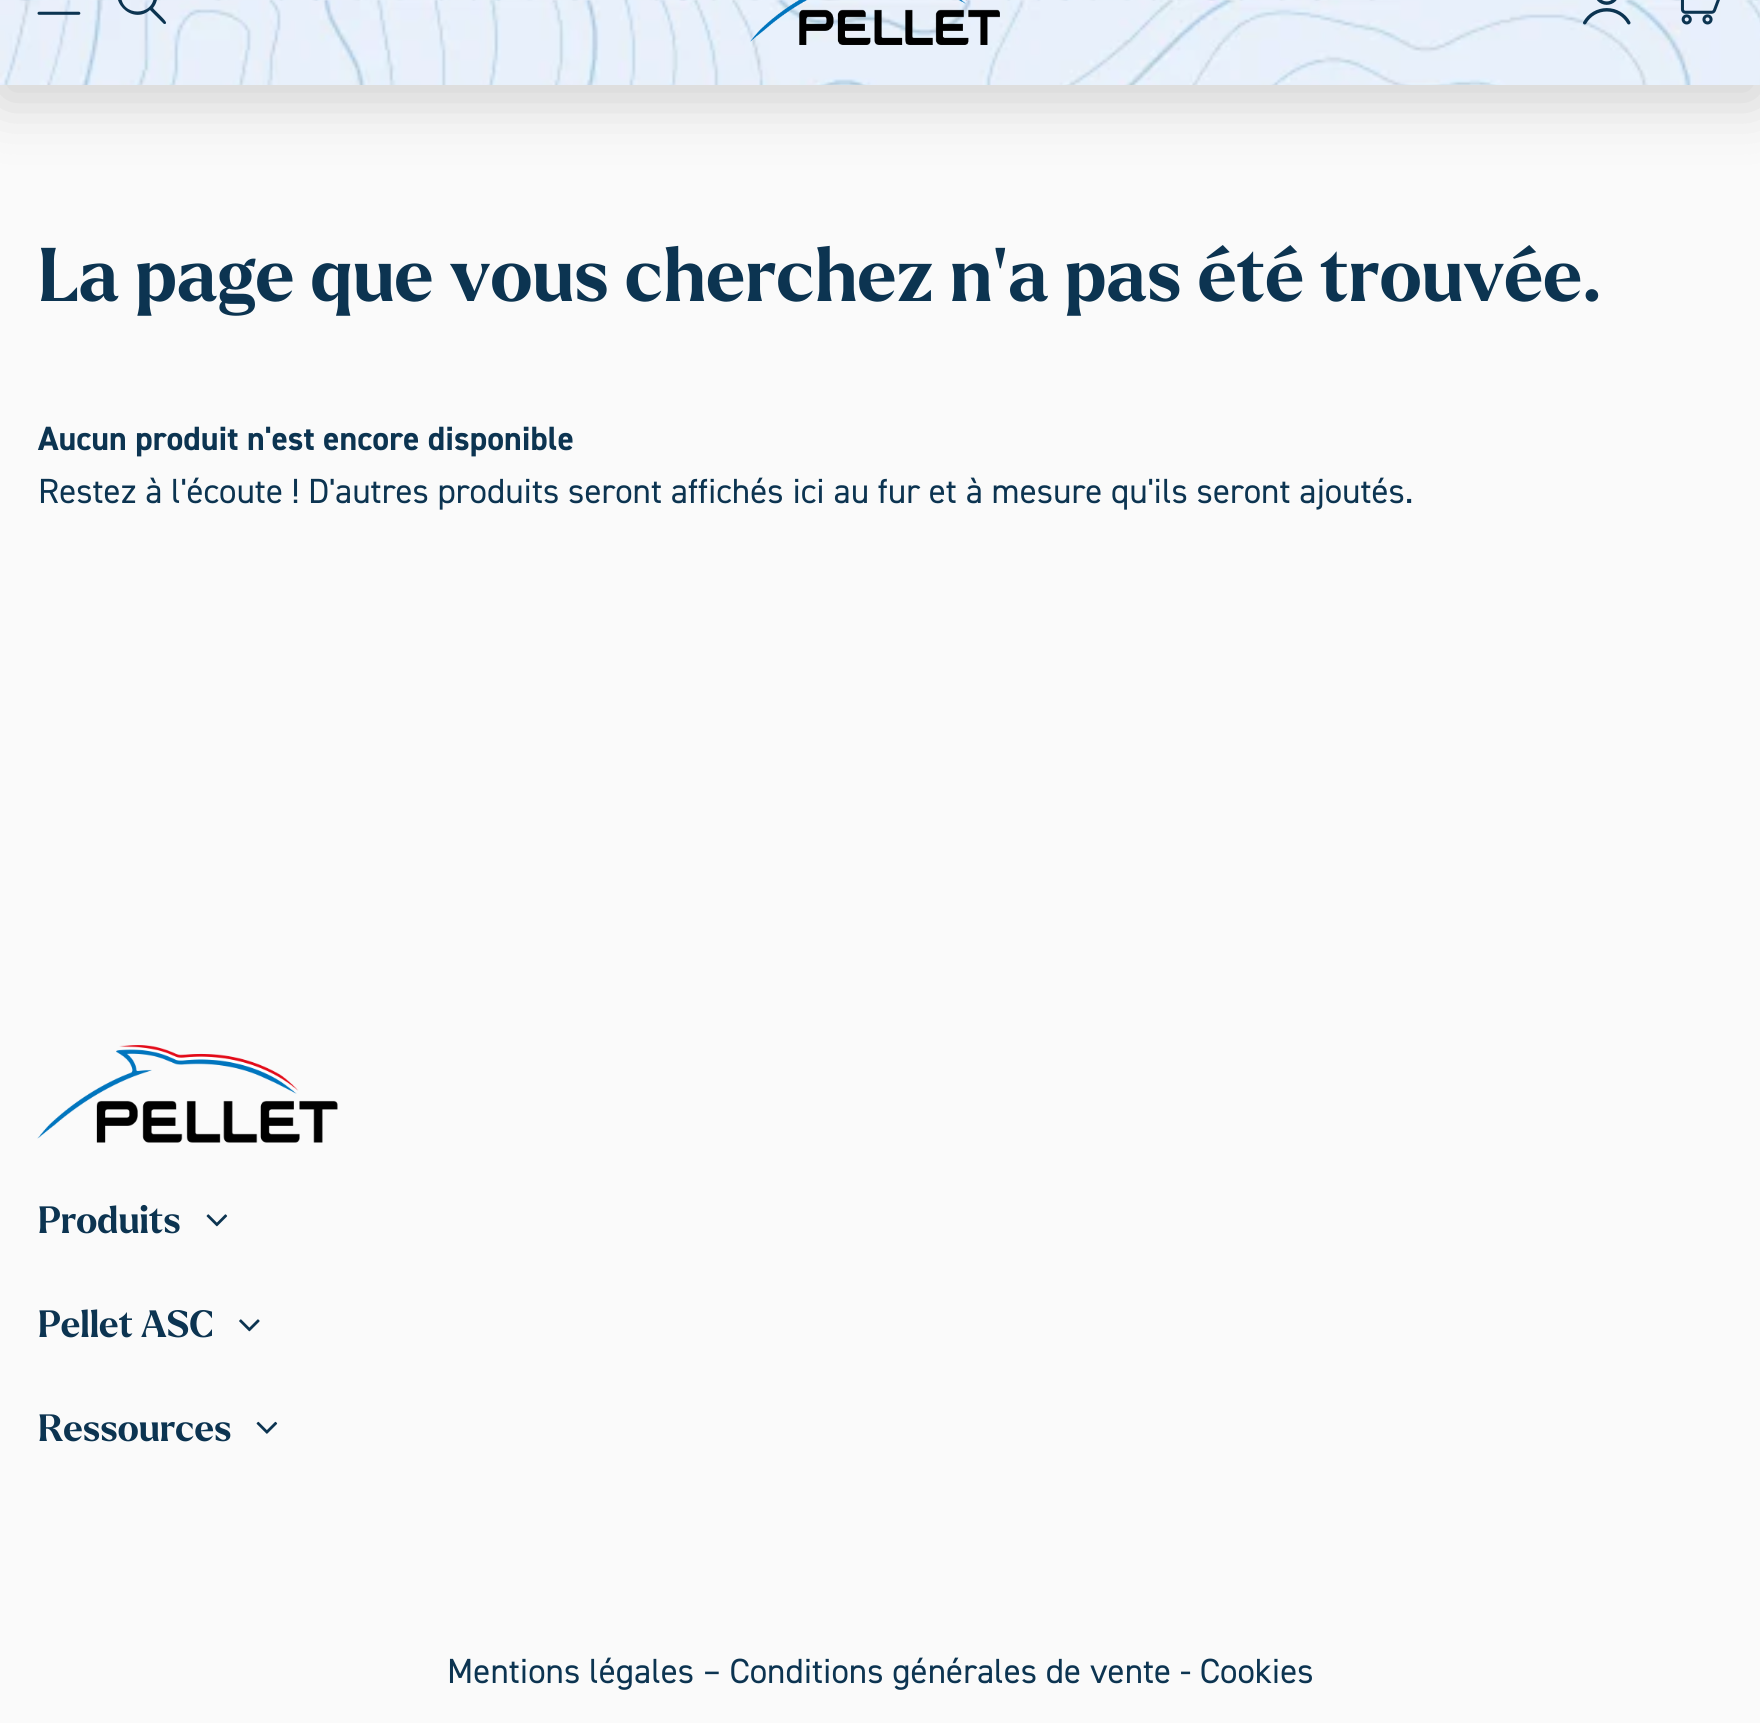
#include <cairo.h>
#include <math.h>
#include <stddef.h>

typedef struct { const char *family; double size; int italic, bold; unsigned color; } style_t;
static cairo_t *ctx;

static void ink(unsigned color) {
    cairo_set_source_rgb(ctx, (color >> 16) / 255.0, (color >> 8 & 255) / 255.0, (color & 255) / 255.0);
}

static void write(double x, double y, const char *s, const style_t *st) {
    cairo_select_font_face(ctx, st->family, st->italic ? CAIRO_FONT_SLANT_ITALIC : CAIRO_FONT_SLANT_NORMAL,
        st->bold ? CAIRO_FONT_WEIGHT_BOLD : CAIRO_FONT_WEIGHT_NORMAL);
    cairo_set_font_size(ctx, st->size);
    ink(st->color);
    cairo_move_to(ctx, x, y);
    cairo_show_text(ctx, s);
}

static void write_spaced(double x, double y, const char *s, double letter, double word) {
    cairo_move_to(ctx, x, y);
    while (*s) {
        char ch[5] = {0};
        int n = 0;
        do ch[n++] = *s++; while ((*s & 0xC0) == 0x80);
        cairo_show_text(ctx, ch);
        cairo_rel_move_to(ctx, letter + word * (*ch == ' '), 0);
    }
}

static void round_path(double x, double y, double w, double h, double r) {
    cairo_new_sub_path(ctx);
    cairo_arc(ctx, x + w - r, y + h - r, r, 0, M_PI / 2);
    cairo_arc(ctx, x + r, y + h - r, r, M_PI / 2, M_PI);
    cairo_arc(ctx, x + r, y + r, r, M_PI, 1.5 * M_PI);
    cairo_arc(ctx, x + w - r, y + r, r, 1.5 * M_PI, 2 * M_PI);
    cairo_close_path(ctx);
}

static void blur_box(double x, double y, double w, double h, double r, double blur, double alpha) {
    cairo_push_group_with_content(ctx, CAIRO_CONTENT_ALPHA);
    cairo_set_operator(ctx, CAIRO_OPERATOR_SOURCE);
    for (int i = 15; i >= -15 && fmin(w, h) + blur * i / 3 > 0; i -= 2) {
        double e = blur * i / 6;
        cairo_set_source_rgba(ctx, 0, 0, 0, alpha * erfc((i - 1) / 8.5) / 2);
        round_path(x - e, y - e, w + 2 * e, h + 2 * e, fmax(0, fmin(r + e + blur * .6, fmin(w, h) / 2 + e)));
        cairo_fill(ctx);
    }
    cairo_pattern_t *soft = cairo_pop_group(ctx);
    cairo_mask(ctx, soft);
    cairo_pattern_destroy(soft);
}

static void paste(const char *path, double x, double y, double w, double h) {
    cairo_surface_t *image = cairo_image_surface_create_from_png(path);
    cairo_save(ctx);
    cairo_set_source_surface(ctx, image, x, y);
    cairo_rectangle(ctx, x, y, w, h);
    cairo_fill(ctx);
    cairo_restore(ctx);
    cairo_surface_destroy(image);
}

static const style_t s1 = {"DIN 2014", 33.75, 0, 1, 0x0c3451};
static const style_t s2 = {"DIN 2014", 35, 0, 0, 0x0c3451};
static const style_t s3 = {"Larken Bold", 37, 0, 1, 0x0c3451};

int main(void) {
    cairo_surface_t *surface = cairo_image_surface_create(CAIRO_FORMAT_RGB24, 1760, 1723);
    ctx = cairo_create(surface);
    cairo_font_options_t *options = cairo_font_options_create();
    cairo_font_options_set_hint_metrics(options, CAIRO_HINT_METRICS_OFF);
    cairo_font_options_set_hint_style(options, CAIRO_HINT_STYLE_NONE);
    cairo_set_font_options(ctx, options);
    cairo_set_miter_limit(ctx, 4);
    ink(0xfafafa);
    cairo_paint(ctx);
    ink(0x000000);
    blur_box(0, -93, 1760, 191, 0, 31, 0.18);
    paste("pic1.png", 0, 0, 1760, 85);
    paste("pic2.png", 37, 11, 44, 4);
    ink(0x0c3451);
    cairo_new_path(ctx);
    cairo_move_to(ctx, 154, -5);
    cairo_curve_to(ctx, 154, -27, 121, -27, 121, -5);
    cairo_curve_to(ctx, 121, 17, 154, 17, 154, -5);
    cairo_close_path(ctx);
    cairo_move_to(ctx, 150, 10);
    cairo_curve_to(ctx, 132, 26, 105, -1, 123, -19);
    cairo_curve_to(ctx, 141, -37, 168, -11, 153, 8);
    cairo_curve_to(ctx, 154, 10, 167, 21, 166, 23);
    cairo_curve_to(ctx, 166, 24, 165, 24, 164, 24);
    cairo_close_path(ctx);
    cairo_fill(ctx);
    paste("pic3.png", 750, 0, 250, 45);
    paste("pic4.png", 1583, 0, 48, 25);
    paste("pic5.png", 1680, 0, 40, 25);
    cairo_select_font_face(ctx, "Larken Bold", CAIRO_FONT_SLANT_NORMAL, CAIRO_FONT_WEIGHT_BOLD);
    cairo_set_font_size(ctx, 73.85);
    write_spaced(38, 301, "La page que vous cherchez n'a pas été trouvée.", 0, -0.25);
    write(38, 450, "Aucun produit n'est encore disponible", &s1);
    write(38, 503, "Restez à l'écoute ! D'autres produits seront affichés ici au fur et à mesure qu'ils seront ajoutés.", &s2);
    paste("pic6.png", 37, 1045, 301, 98);
    write(38, 1233, "Produits", &s3);
    paste("pic7.png", 206, 1214, 22, 13);
    write(38, 1337, "Pellet ASC", &s3);
    paste("pic8.png", 239, 1319, 21, 13);
    write(38, 1441, "Ressources", &s3);
    paste("pic9.png", 256, 1421, 22, 13);
    write(447, 1683, "Mentions légales – Conditions générales de vente - Cookies", &s2);
    cairo_surface_write_to_png(surface, "screenshot.png");
    cairo_font_options_destroy(options);
    cairo_destroy(ctx);
    cairo_surface_destroy(surface);
    return 0;
}
